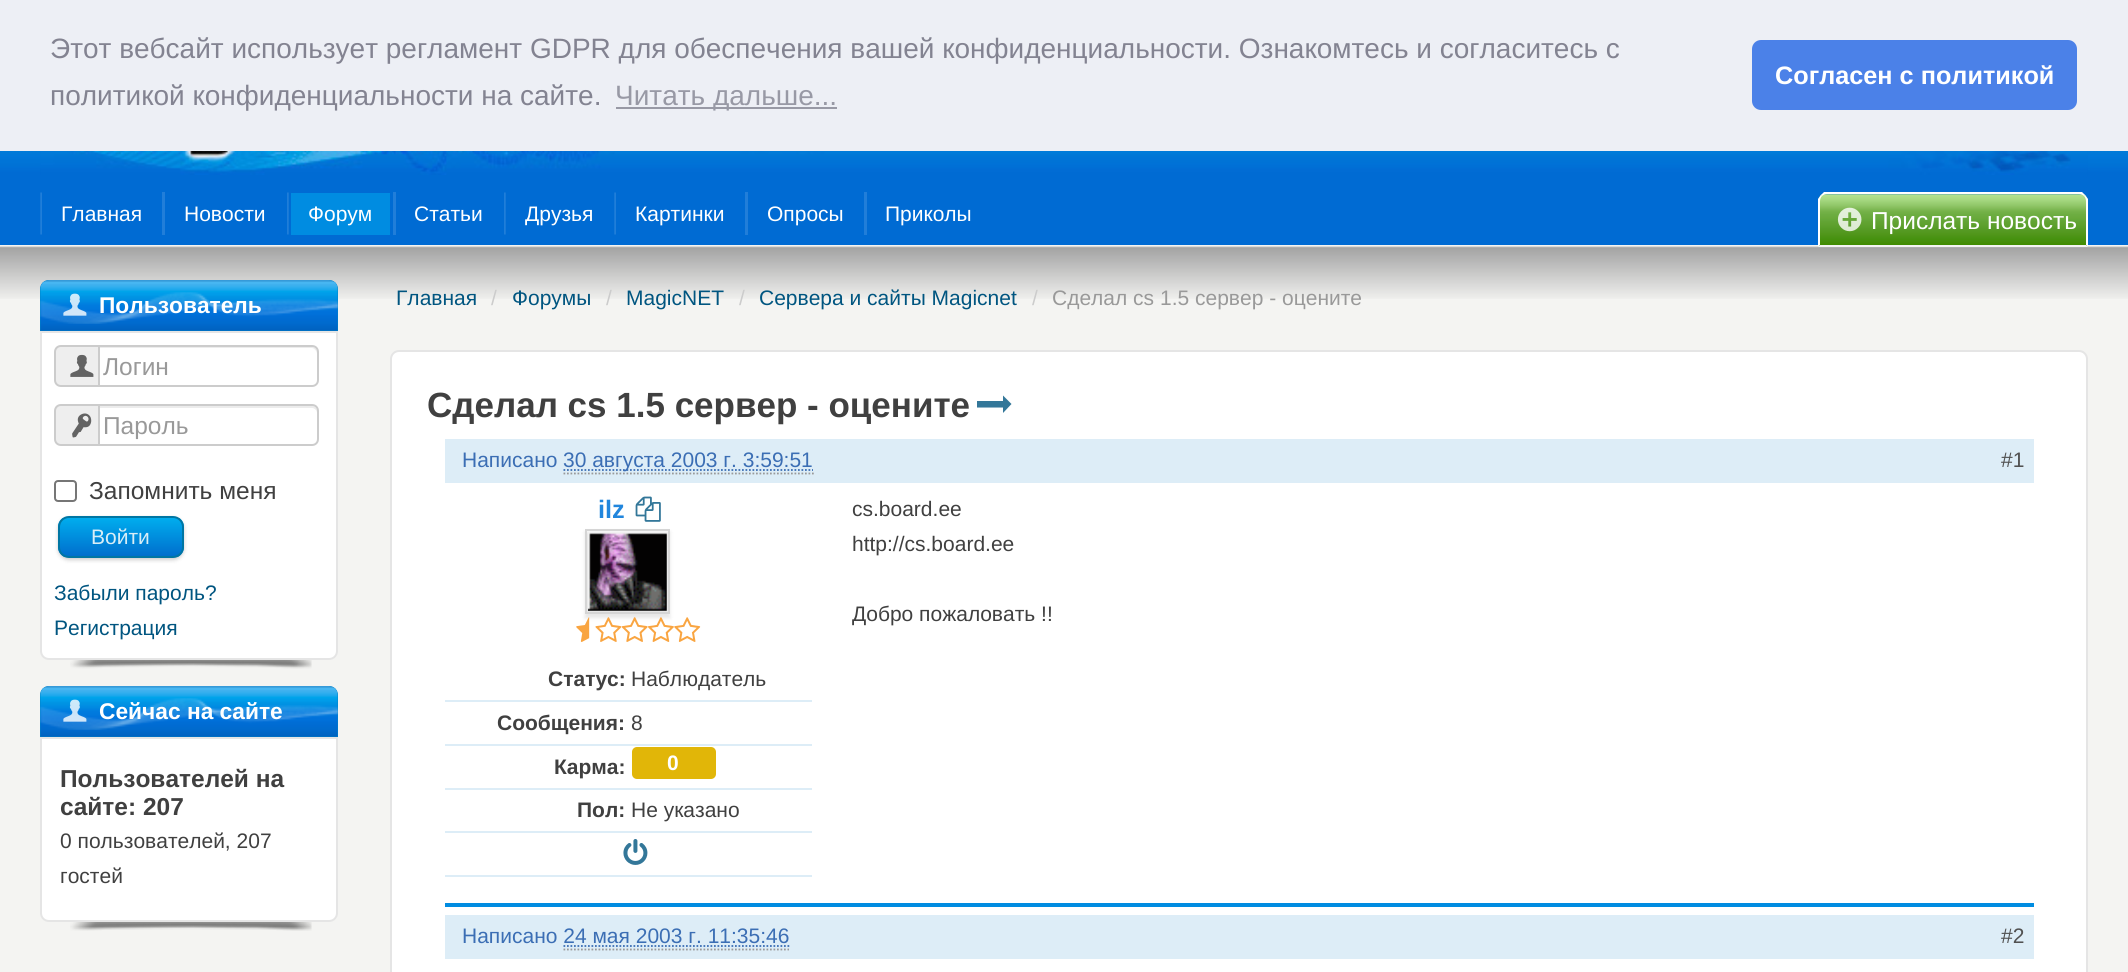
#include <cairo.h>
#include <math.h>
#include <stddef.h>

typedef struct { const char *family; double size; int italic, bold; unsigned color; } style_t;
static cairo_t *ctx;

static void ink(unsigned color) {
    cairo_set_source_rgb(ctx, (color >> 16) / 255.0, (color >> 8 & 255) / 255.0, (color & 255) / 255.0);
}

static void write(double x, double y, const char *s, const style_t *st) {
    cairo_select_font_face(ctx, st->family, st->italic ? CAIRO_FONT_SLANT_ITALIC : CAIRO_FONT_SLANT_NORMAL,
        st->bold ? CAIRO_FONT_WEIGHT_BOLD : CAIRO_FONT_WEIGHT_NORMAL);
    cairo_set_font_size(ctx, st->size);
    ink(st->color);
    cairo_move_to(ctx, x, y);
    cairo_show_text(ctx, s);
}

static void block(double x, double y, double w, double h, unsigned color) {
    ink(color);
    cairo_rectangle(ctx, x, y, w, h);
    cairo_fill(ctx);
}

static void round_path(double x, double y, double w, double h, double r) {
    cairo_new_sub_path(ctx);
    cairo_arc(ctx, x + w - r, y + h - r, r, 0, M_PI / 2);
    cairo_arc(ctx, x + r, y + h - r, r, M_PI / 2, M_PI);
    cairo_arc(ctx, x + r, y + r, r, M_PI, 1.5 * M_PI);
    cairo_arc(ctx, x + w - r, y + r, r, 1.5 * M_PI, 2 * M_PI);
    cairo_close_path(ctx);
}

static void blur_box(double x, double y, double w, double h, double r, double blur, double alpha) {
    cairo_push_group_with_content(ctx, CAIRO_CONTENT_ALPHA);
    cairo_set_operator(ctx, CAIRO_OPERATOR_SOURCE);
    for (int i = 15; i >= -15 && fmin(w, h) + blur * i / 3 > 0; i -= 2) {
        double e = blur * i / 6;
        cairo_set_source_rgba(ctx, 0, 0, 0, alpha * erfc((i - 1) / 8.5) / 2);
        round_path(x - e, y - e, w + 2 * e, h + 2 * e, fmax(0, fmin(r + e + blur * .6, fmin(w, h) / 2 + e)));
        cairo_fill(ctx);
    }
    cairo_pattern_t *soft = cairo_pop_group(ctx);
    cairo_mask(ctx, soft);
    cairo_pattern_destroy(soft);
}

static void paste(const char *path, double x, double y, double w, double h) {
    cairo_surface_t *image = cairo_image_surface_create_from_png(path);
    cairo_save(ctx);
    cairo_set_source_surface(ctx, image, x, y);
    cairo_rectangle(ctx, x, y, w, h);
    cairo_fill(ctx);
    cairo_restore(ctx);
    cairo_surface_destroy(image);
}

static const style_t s1 = {"Liberation Sans", 28, 0, 0, 0x838391};
static const style_t s2 = {"Liberation Sans", 28, 0, 0, 0x9899a5};
static const style_t s3 = {"Liberation Sans", 25.25, 0, 1, 0xffffff};
static const style_t s4 = {"Liberation Sans", 21, 0, 0, 0xffffff};
static const style_t s5 = {"Liberation Sans", 24.5, 0, 0, 0xffffff};
static const style_t s6 = {"Liberation Sans", 22.75, 0, 1, 0xffffff};
static const style_t s7 = {"Liberation Sans", 24.5, 0, 0, 0x999999};
static const style_t s8 = {"Liberation Sans", 24.5, 0, 0, 0x404040};
static const style_t s9 = {"Liberation Sans", 21, 0, 0, 0xd9eef7};
static const style_t s10 = {"Liberation Sans", 21, 0, 0, 0x005580};
static const style_t s11 = {"Liberation Sans", 24.5, 0, 1, 0x404040};
static const style_t s12 = {"Liberation Sans", 21, 0, 0, 0x404040};
static const style_t s13 = {"Liberation Sans", 21, 0, 0, 0xcccccc};
static const style_t s14 = {"Liberation Sans", 21, 0, 0, 0x999999};
static const style_t s15 = {"Liberation Sans", 35, 0, 1, 0x404040};
static const style_t s16 = {"Liberation Sans", 21, 0, 0, 0x3b6eb4};
static const style_t s17 = {"Liberation Sans", 21, 0, 0, 0x515151};
static const style_t s18 = {"Liberation Sans", 25.25, 0, 1, 0x2186dd};
static const style_t s19 = {"Liberation Sans", 21, 0, 1, 0x404040};
static const style_t s20 = {"Liberation Sans", 21, 0, 1, 0xffffff};

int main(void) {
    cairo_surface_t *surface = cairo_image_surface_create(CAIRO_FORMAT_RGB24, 2128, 972);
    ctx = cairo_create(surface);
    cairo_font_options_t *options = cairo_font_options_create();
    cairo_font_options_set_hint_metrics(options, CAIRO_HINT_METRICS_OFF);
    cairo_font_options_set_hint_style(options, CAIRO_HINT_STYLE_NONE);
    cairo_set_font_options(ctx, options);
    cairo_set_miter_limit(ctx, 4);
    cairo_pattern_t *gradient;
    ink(0xf4f4f2);
    cairo_paint(ctx);
    block(0, 0, 2128, 151, 0xedeff5);
    write(50, 58, "Этот вебсайт использует регламент GDPR для обеспечения вашей конфиденциальности. Ознакомтесь и согласитесь с", &s1);
    write(50, 105, "политикой конфиденциальности на сайте.", &s1);
    block(616, 107, 221, 2, 0x9899a5);
    write(615, 105, "Читать дальше...", &s2);
    ink(0x4b81e8);
    round_path(1752, 40, 325, 70, 9);
    cairo_fill(ctx);
    write(1775, 84, "Согласен с политикой", &s3);
    paste("pic1.png", 0, 151, 2128, 94);
    paste("pic2.png", 40, 151, 2048, 24);
    paste("pic3.png", 40, 192, 2, 43);
    write(61, 221, "Главная", &s4);
    block(162, 192, 3, 43, 0x217ed9);
    write(184, 221, "Новости", &s4);
    paste("pic4.png", 287, 192, 2, 43);
    block(291, 193, 99, 42, 0x008ce1);
    write(308, 221, "Форум", &s4);
    block(393, 192, 3, 43, 0x217ed9);
    write(414, 221, "Статьи", &s4);
    paste("pic4.png", 504, 192, 2, 43);
    write(525, 221, "Друзья", &s4);
    paste("pic3.png", 614, 192, 2, 43);
    write(635, 221, "Картинки", &s4);
    block(745, 192, 3, 43, 0x217ed9);
    write(767, 221, "Опросы", &s4);
    block(864, 192, 3, 43, 0x217ed9);
    write(885, 221, "Приколы", &s4);
    paste("pic7.png", 0, 246, 2128, 53);
    paste("pic5.png", 1818, 194, 270, 53);
    cairo_new_path(ctx);
    cairo_move_to(ctx, 1827, 194);
    cairo_curve_to(ctx, 1825, 194, 1823, 195, 1822, 196);
    cairo_line_to(ctx, 1821, 195);
    cairo_line_to(ctx, 1824, 192);
    cairo_line_to(ctx, 2082, 192);
    cairo_line_to(ctx, 2085, 195);
    cairo_line_to(ctx, 2084, 196);
    cairo_curve_to(ctx, 2083, 195, 2081, 194, 2079, 194);
    cairo_close_path(ctx);
    cairo_fill(ctx);
    cairo_new_path(ctx);
    cairo_move_to(ctx, 2085, 195);
    cairo_line_to(ctx, 2088, 199);
    cairo_line_to(ctx, 2088, 247);
    cairo_line_to(ctx, 2086, 245);
    cairo_line_to(ctx, 2086, 201);
    cairo_curve_to(ctx, 2086, 199, 2085, 197, 2084, 196);
    cairo_close_path(ctx);
    cairo_fill(ctx);
    ink(0xf4f4f2);
    cairo_new_path(ctx);
    cairo_move_to(ctx, 2088, 247);
    cairo_line_to(ctx, 2086, 245);
    cairo_line_to(ctx, 1820, 245);
    cairo_line_to(ctx, 1818, 247);
    cairo_close_path(ctx);
    cairo_fill(ctx);
    ink(0xffffff);
    cairo_new_path(ctx);
    cairo_move_to(ctx, 1818, 247);
    cairo_line_to(ctx, 1818, 199);
    cairo_line_to(ctx, 1821, 195);
    cairo_line_to(ctx, 1822, 196);
    cairo_curve_to(ctx, 1821, 197, 1820, 199, 1820, 201);
    cairo_line_to(ctx, 1820, 245);
    cairo_close_path(ctx);
    cairo_fill(ctx);
    paste("pic6.png", 1837, 207, 25, 25);
    write(1871, 229, "Прислать новость", &s5);
    paste("pic8.png", 70, 660, 242, 9);
    ink(0x0082c8);
    cairo_new_path(ctx);
    cairo_move_to(ctx, 49, 280);
    cairo_line_to(ctx, 329, 280);
    cairo_curve_to(ctx, 334, 280, 338, 284, 338, 289);
    cairo_line_to(ctx, 338, 331);
    cairo_line_to(ctx, 40, 331);
    cairo_line_to(ctx, 40, 289);
    cairo_curve_to(ctx, 40, 284, 44, 280, 49, 280);
    cairo_close_path(ctx);
    cairo_fill(ctx);
    paste("pic9.png", 40, 280, 298, 51);
    paste("pic10.png", 40, 292, 298, 32);
    paste("pic11.png", 63, 293, 24, 23);
    write(99, 313, "Пользователь", &s6);
    cairo_new_path(ctx);
    cairo_move_to(ctx, 41, 332);
    cairo_line_to(ctx, 337, 332);
    cairo_line_to(ctx, 337, 651);
    cairo_curve_to(ctx, 337, 655.5, 333.5, 659, 329, 659);
    cairo_line_to(ctx, 49, 659);
    cairo_curve_to(ctx, 44.5, 659, 41, 655.5, 41, 651);
    cairo_close_path(ctx);
    cairo_fill_preserve(ctx);
    ink(0xe5e5e5);
    cairo_stroke(ctx);
    ink(0xeeeeee);
    cairo_new_path(ctx);
    cairo_move_to(ctx, 61, 346);
    cairo_line_to(ctx, 99, 346);
    cairo_line_to(ctx, 99, 386);
    cairo_line_to(ctx, 61, 386);
    cairo_curve_to(ctx, 57.5, 386, 55, 383.5, 55, 380);
    cairo_line_to(ctx, 55, 352);
    cairo_curve_to(ctx, 55, 348.5, 57.5, 346, 61, 346);
    cairo_close_path(ctx);
    cairo_fill_preserve(ctx);
    ink(0xcccccc);
    cairo_stroke(ctx);
    paste("pic12.png", 70, 354, 24, 23);
    ink(0xffffff);
    cairo_new_path(ctx);
    cairo_move_to(ctx, 98, 345);
    cairo_line_to(ctx, 312, 345);
    cairo_curve_to(ctx, 316, 345, 319, 348, 319, 352);
    cairo_line_to(ctx, 319, 380);
    cairo_curve_to(ctx, 319, 384, 316, 387, 312, 387);
    cairo_line_to(ctx, 98, 387);
    cairo_close_path(ctx);
    cairo_fill(ctx);
    ink(0xececec);
    cairo_new_path(ctx);
    cairo_move_to(ctx, 100, 348);
    cairo_line_to(ctx, 312, 348);
    cairo_curve_to(ctx, 314, 348, 317, 351, 317, 354);
    cairo_line_to(ctx, 317, 352);
    cairo_curve_to(ctx, 317, 349, 315, 347, 312, 347);
    cairo_line_to(ctx, 100, 347);
    cairo_close_path(ctx);
    cairo_fill(ctx);
    cairo_new_path(ctx);
    cairo_move_to(ctx, 99, 346);
    cairo_line_to(ctx, 312, 346);
    cairo_curve_to(ctx, 315.5, 346, 318, 348.5, 318, 352);
    cairo_line_to(ctx, 318, 380);
    cairo_curve_to(ctx, 318, 383.5, 315.5, 386, 312, 386);
    cairo_line_to(ctx, 99, 386);
    cairo_close_path(ctx);
    ink(0xcccccc);
    cairo_stroke(ctx);
    write(103, 375, "Логин", &s7);
    ink(0xeeeeee);
    cairo_new_path(ctx);
    cairo_move_to(ctx, 61, 405);
    cairo_line_to(ctx, 99, 405);
    cairo_line_to(ctx, 99, 445);
    cairo_line_to(ctx, 61, 445);
    cairo_curve_to(ctx, 57.5, 445, 55, 442.5, 55, 439);
    cairo_line_to(ctx, 55, 411);
    cairo_curve_to(ctx, 55, 407.5, 57.5, 405, 61, 405);
    cairo_close_path(ctx);
    cairo_fill_preserve(ctx);
    ink(0xcccccc);
    cairo_stroke(ctx);
    paste("pic13.png", 72, 413, 20, 25);
    ink(0xffffff);
    cairo_new_path(ctx);
    cairo_move_to(ctx, 98, 404);
    cairo_line_to(ctx, 312, 404);
    cairo_curve_to(ctx, 316, 404, 319, 407, 319, 411);
    cairo_line_to(ctx, 319, 439);
    cairo_curve_to(ctx, 319, 443, 316, 446, 312, 446);
    cairo_line_to(ctx, 98, 446);
    cairo_close_path(ctx);
    cairo_fill(ctx);
    ink(0xececec);
    cairo_new_path(ctx);
    cairo_move_to(ctx, 100, 408);
    cairo_line_to(ctx, 312, 408);
    cairo_curve_to(ctx, 314, 408, 317, 410, 317, 413);
    cairo_line_to(ctx, 317, 411);
    cairo_curve_to(ctx, 317, 408, 315, 406, 312, 406);
    cairo_line_to(ctx, 100, 406);
    cairo_close_path(ctx);
    cairo_fill(ctx);
    cairo_new_path(ctx);
    cairo_move_to(ctx, 99, 405);
    cairo_line_to(ctx, 312, 405);
    cairo_curve_to(ctx, 315.5, 405, 318, 407.5, 318, 411);
    cairo_line_to(ctx, 318, 439);
    cairo_curve_to(ctx, 318, 442.5, 315.5, 445, 312, 445);
    cairo_line_to(ctx, 99, 445);
    cairo_close_path(ctx);
    ink(0xcccccc);
    cairo_stroke(ctx);
    write(103, 434, "Пароль", &s7);
    round_path(55, 481, 21, 20, 3);
    ink(0x767676);
    cairo_stroke(ctx);
    write(89, 499, "Запомнить меня", &s8);
    ink(0x000000);
    blur_box(58, 518, 126, 42, 11, 2, 0.2);
    cairo_save(ctx);
    round_path(58, 516, 126, 42, 11);
    cairo_clip(ctx);
    gradient = cairo_pattern_create_linear(60, 518, 60, 557);
    cairo_pattern_add_color_stop_rgba(gradient, 0, 0, 0.678, 0.933, 1);
    cairo_pattern_add_color_stop_rgba(gradient, 1, 0, 0.427, 0.8, 1);
    cairo_set_source(ctx, gradient);
    cairo_pattern_destroy(gradient);
    cairo_rectangle(ctx, 58, 518, 126, 39);
    cairo_fill(ctx);
    cairo_restore(ctx);
    round_path(59, 517, 124, 40, 10);
    ink(0x0076a3);
    cairo_stroke(ctx);
    write(91, 544, "Войти", &s9);
    write(54, 600, "Забыли пароль?", &s10);
    write(54, 635, "Регистрация", &s10);
    paste("pic14.png", 70, 922, 242, 9);
    ink(0x0082c8);
    cairo_new_path(ctx);
    cairo_move_to(ctx, 49, 686);
    cairo_line_to(ctx, 329, 686);
    cairo_curve_to(ctx, 334, 686, 338, 690, 338, 695);
    cairo_line_to(ctx, 338, 737);
    cairo_line_to(ctx, 40, 737);
    cairo_line_to(ctx, 40, 695);
    cairo_curve_to(ctx, 40, 690, 44, 686, 49, 686);
    cairo_close_path(ctx);
    cairo_fill(ctx);
    paste("pic15.png", 40, 686, 298, 51);
    paste("pic10.png", 40, 698, 298, 32);
    paste("pic11.png", 63, 699, 24, 23);
    write(99, 719, "Сейчас на сайте", &s6);
    cairo_new_path(ctx);
    cairo_move_to(ctx, 41, 738);
    cairo_line_to(ctx, 337, 738);
    cairo_line_to(ctx, 337, 913);
    cairo_curve_to(ctx, 337, 917.5, 333.5, 921, 329, 921);
    cairo_line_to(ctx, 49, 921);
    cairo_curve_to(ctx, 44.5, 921, 41, 917.5, 41, 913);
    cairo_close_path(ctx);
    cairo_fill_preserve(ctx);
    ink(0xe5e5e5);
    cairo_stroke(ctx);
    write(60, 787, "Пользователей на", &s11);
    write(60, 815, "сайте: 207", &s11);
    write(60, 848, "0 пользователей, 207", &s12);
    write(60, 883, "гостей", &s12);
    write(396, 305, "Главная", &s10);
    write(491, 305, "/", &s13);
    write(512, 305, "Форумы", &s10);
    write(606, 305, "/", &s13);
    write(626, 305, "MagicNET", &s10);
    write(739, 305, "/", &s13);
    write(759, 305, "Сервера и сайты Magicnet", &s10);
    write(1032, 305, "/", &s13);
    write(1052, 305, "Сделал cs 1.5 сервер - оцените", &s14);
    ink(0xffffff);
    round_path(391, 351, 1696, 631, 8);
    cairo_fill_preserve(ctx);
    ink(0xe5e5e5);
    cairo_stroke(ctx);
    write(427, 417, "Сделал cs 1.5 сервер - оцените", &s15);
    ink(0x337799);
    cairo_new_path(ctx);
    cairo_move_to(ctx, 1003, 413);
    cairo_line_to(ctx, 1003, 407.5);
    cairo_line_to(ctx, 977, 407.5);
    cairo_line_to(ctx, 977, 401);
    cairo_line_to(ctx, 1003, 401);
    cairo_line_to(ctx, 1003, 395.5);
    cairo_line_to(ctx, 1011.5, 404);
    cairo_close_path(ctx);
    cairo_fill(ctx);
    block(445, 903, 1589, 4, 0x008ce1);
    block(445, 439, 1589, 44, 0xddedf7);
    write(462, 467, "Написано", &s16);
    cairo_new_path(ctx);
    cairo_move_to(ctx, 563.5, 470);
    cairo_line_to(ctx, 813, 470);
    cairo_set_line_width(ctx, 1.8);
    cairo_set_dash(ctx, (double[]){1.75, 1.75}, 2, 0);
    cairo_stroke(ctx);
    write(563, 467, "30 августа 2003 г. 3:59:51", &s16);
    cairo_new_path(ctx);
    cairo_move_to(ctx, 563.5, 473.5);
    cairo_line_to(ctx, 814, 473.5);
    ink(0x999999);
    cairo_stroke(ctx);
    write(2001, 467, "#1", &s17);
    write(598, 518, "ilz", &s18);
    paste("pic16.png", 635, 496, 26, 26);
    ink(0x000000);
    blur_box(585, 532, 85, 86, 0, 2, 0.1);
    cairo_rectangle(ctx, 586, 530, 83, 83);
    ink(0xd5d5d5);
    cairo_set_line_width(ctx, 2);
    cairo_set_dash(ctx, NULL, 0, 0);
    cairo_stroke(ctx);
    paste("pic17.png", 588, 532, 79, 79);
    paste("pic18.png", 576, 617, 14, 25);
    paste("pic19.png", 595, 617, 27, 25);
    paste("pic20.png", 621, 617, 27, 25);
    paste("pic21.png", 648, 617, 26, 25);
    paste("pic22.png", 674, 617, 27, 25);
    block(445, 700, 367, 2, 0xddedf7);
    write(548, 686, "Статус:", &s19);
    write(631, 686, "Наблюдатель", &s12);
    block(445, 744, 367, 2, 0xddedf7);
    write(497, 730, "Сообщения:", &s19);
    write(631, 730, "8", &s12);
    block(445, 788, 367, 2, 0xddedf7);
    write(554, 774, "Карма:", &s19);
    ink(0xe1b608);
    round_path(632, 747, 84, 32, 5);
    cairo_fill(ctx);
    write(667, 770, "0", &s20);
    block(445, 831, 367, 2, 0xddedf7);
    write(577, 817, "Пол:", &s19);
    write(631, 817, "Не указано", &s12);
    block(445, 875, 367, 2, 0xddedf7);
    paste("pic23.png", 623, 839, 25, 26);
    write(852, 516, "cs.board.ee", &s12);
    write(852, 551, "http://cs.board.ee", &s12);
    write(852, 621, "Добро пожаловать !!", &s12);
    block(445, 915, 1589, 44, 0xddedf7);
    write(462, 943, "Написано 24 мая 2003 г. 11:35:46", &s16);
    cairo_new_path(ctx);
    cairo_move_to(ctx, 563.5, 946);
    cairo_line_to(ctx, 789.5, 946);
    cairo_set_line_width(ctx, 1.8);
    cairo_set_dash(ctx, (double[]){1.75, 1.75}, 2, 0);
    cairo_stroke(ctx);
    cairo_new_path(ctx);
    cairo_move_to(ctx, 563.5, 949.5);
    cairo_line_to(ctx, 789, 949.5);
    ink(0x999999);
    cairo_stroke(ctx);
    write(2001, 943, "#2", &s17);
    cairo_surface_write_to_png(surface, "screenshot.png");
    cairo_font_options_destroy(options);
    cairo_destroy(ctx);
    cairo_surface_destroy(surface);
    return 0;
}
